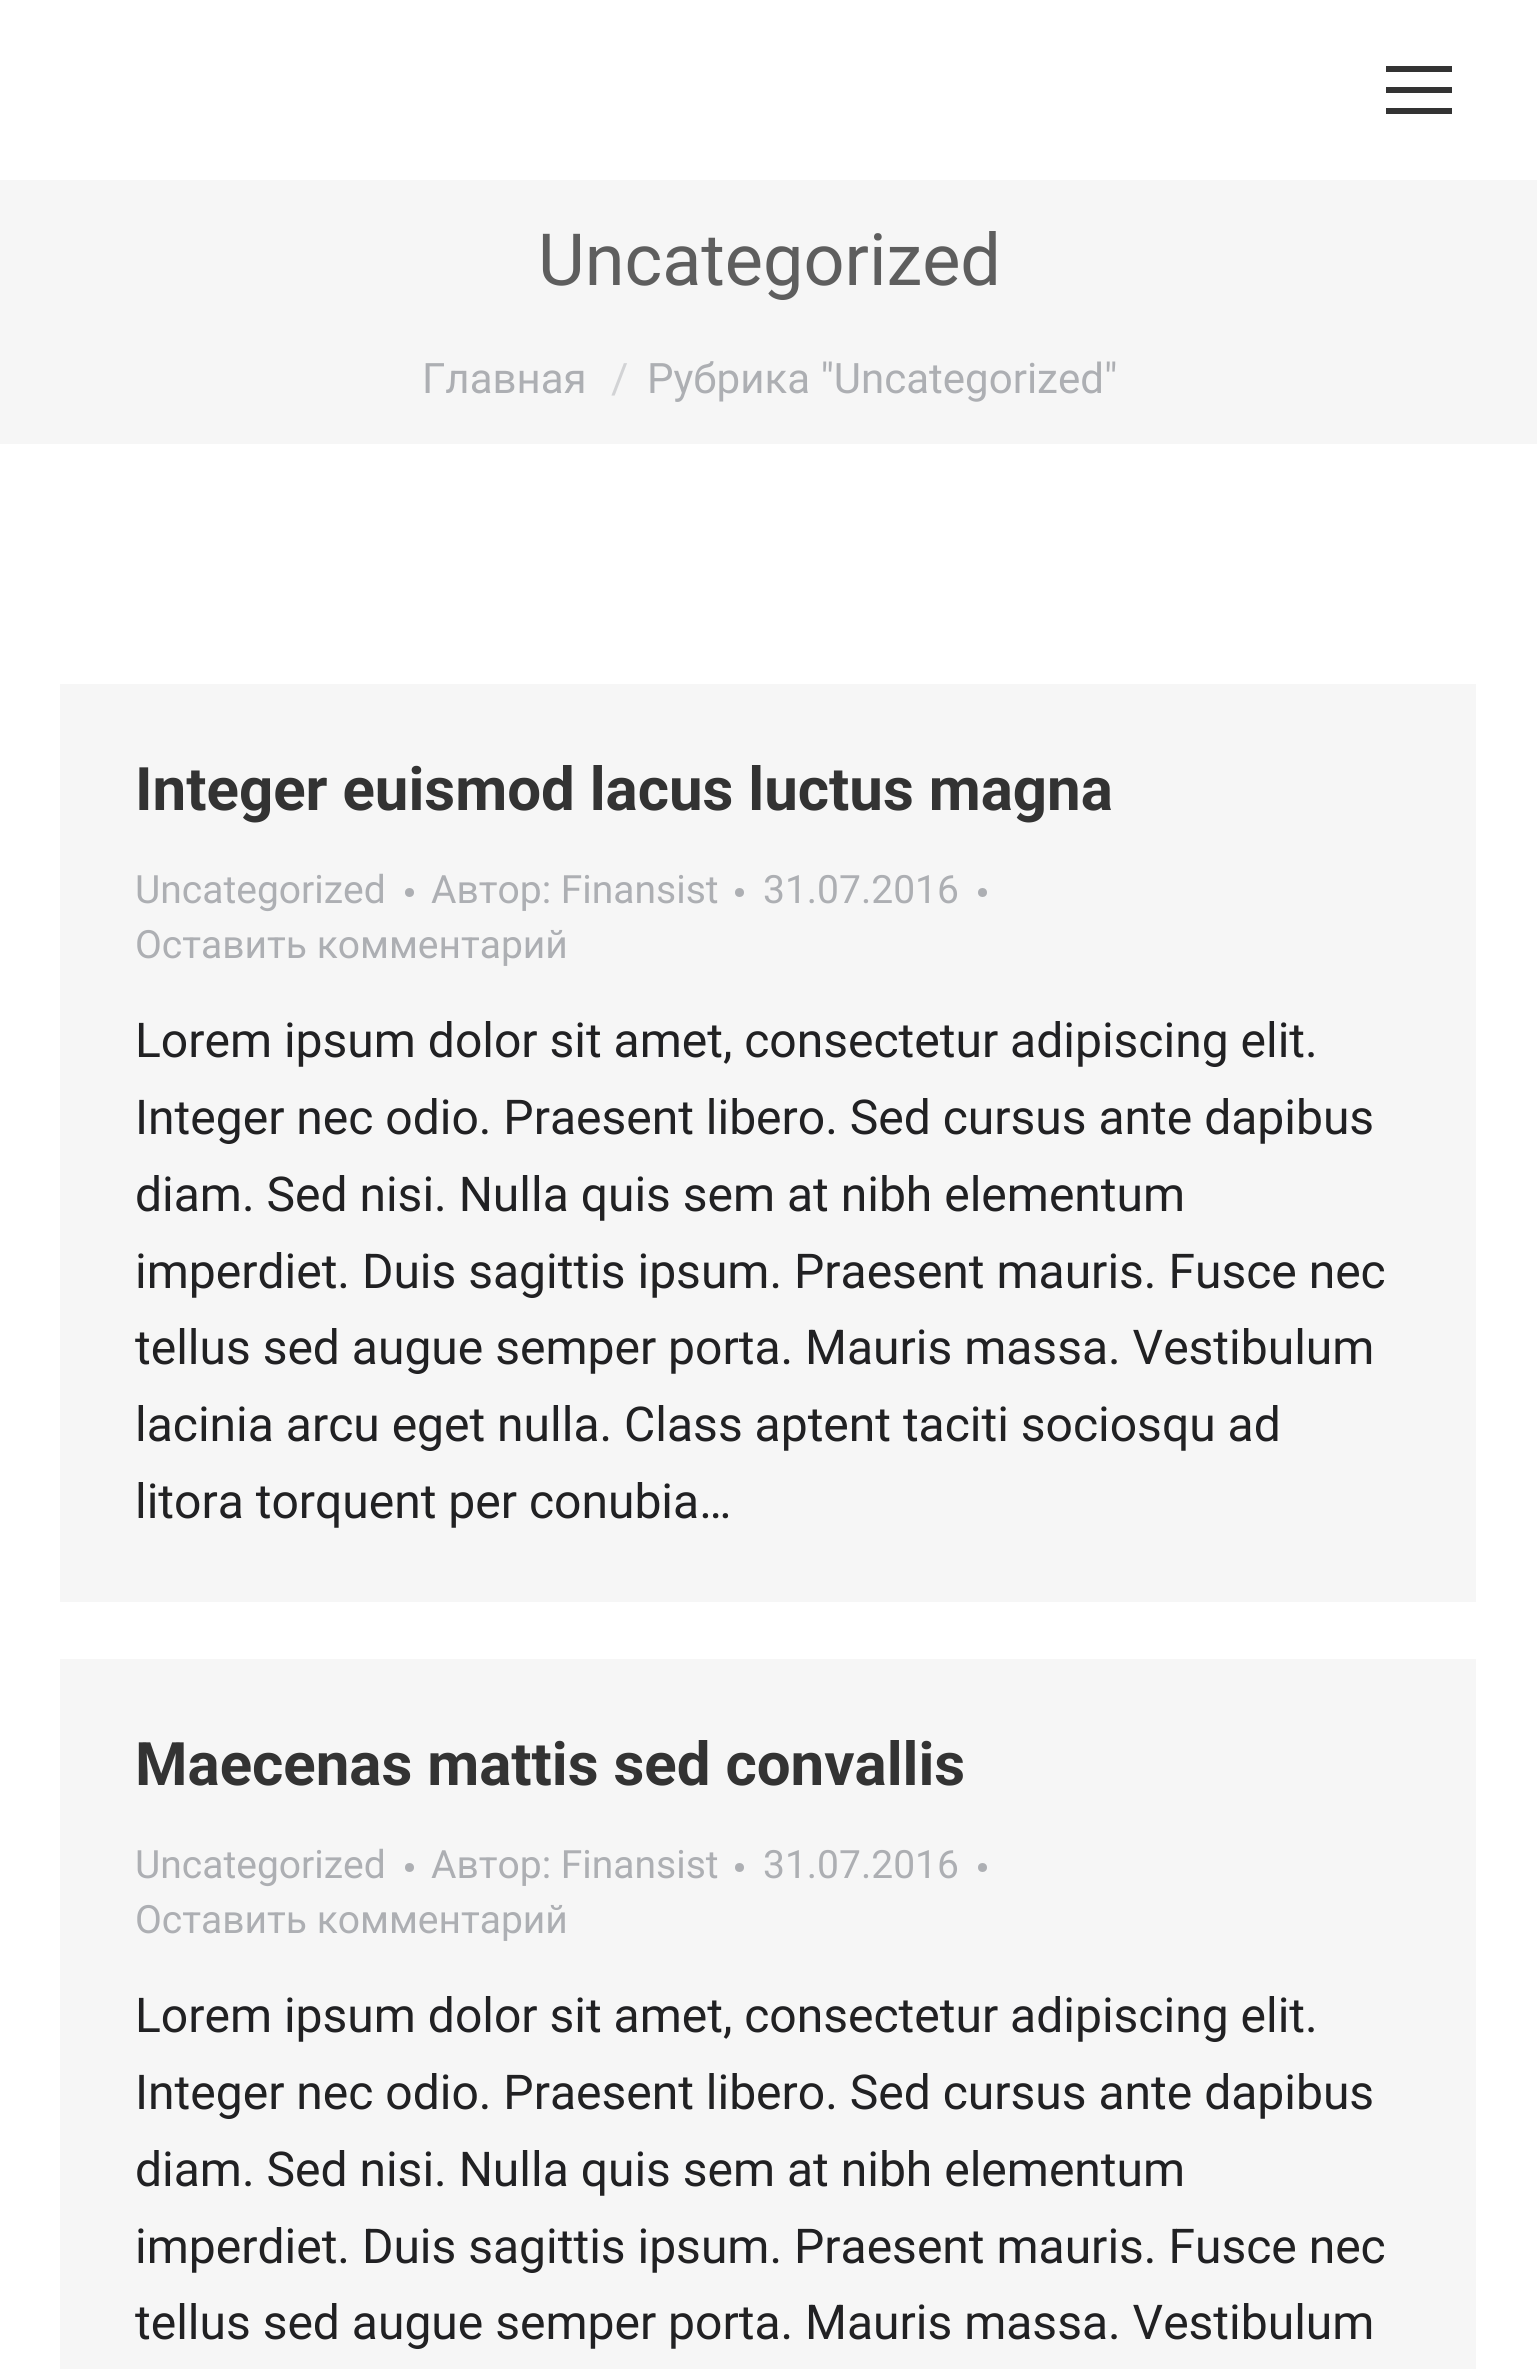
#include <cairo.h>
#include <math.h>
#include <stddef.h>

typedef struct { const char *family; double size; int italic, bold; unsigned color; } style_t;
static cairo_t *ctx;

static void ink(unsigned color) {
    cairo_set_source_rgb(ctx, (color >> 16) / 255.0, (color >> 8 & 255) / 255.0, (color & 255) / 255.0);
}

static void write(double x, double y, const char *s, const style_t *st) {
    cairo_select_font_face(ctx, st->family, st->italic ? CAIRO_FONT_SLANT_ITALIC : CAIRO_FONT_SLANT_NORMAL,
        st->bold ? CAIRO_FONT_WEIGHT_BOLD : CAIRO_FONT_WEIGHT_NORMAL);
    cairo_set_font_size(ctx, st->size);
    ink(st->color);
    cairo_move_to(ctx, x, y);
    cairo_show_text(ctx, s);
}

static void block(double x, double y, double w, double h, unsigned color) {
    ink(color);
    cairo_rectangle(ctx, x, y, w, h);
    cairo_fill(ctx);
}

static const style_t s1 = {"Roboto", 72, 0, 0, 0x5e5e5e};
static const style_t s2 = {"Roboto", 42, 0, 0, 0xadafb3};
static const style_t s3 = {"Roboto", 42, 0, 0, 0xd2d3d5};
static const style_t s4 = {"Roboto", 60, 0, 1, 0x333333};
static const style_t s5 = {"Roboto", 39, 0, 0, 0xadafb3};
static const style_t s6 = {"Roboto", 48, 0, 0, 0x212123};

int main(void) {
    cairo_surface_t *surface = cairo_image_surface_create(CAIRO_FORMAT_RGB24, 1537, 2369);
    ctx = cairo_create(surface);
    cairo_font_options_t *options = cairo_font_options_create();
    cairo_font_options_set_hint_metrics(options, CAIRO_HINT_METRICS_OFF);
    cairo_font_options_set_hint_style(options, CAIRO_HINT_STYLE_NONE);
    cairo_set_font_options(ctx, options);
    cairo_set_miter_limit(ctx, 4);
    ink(0xffffff);
    cairo_paint(ctx);
    block(1386, 66, 66, 6, 0x333333);
    block(1386, 87, 66, 6, 0x333333);
    block(1386, 108, 66, 6, 0x333333);
    block(0, 180, 1537, 264, 0xf6f6f6);
    write(538, 285, "Uncategorized", &s1);
    write(422, 393, "Главная", &s2);
    write(611, 393, "/", &s3);
    write(647, 393, "Рубрика \"Uncategorized\"", &s2);
    block(60, 684, 1416, 918, 0xf6f6f6);
    write(135, 810, "Integer euismod lacus luctus magna", &s4);
    write(135, 903, "Uncategorized", &s5);
    cairo_new_path(ctx);
    cairo_arc(ctx, 409.5, 892.5, 4.5, 0, 2 * M_PI);
    cairo_fill(ctx);
    write(431, 903, "Автор: Finansist", &s5);
    cairo_new_path(ctx);
    cairo_arc(ctx, 739.5, 892.5, 4.5, 0, 2 * M_PI);
    cairo_fill(ctx);
    write(763, 903, "31.07.2016", &s5);
    cairo_new_path(ctx);
    cairo_arc(ctx, 982.5, 892.5, 4.5, 0, 2 * M_PI);
    cairo_fill(ctx);
    write(135, 958, "Оставить комментарий", &s5);
    write(135, 1057, "Lorem ipsum dolor sit amet, consectetur adipiscing elit.", &s6);
    write(135, 1134, "Integer nec odio. Praesent libero. Sed cursus ante dapibus", &s6);
    write(135, 1211, "diam. Sed nisi. Nulla quis sem at nibh elementum", &s6);
    write(135, 1288, "imperdiet. Duis sagittis ipsum. Praesent mauris. Fusce nec", &s6);
    write(135, 1364, "tellus sed augue semper porta. Mauris massa. Vestibulum", &s6);
    write(135, 1441, "lacinia arcu eget nulla. Class aptent taciti sociosqu ad", &s6);
    write(135, 1518, "litora torquent per conubia…", &s6);
    block(60, 1659, 1416, 710, 0xf6f6f6);
    write(135, 1785, "Maecenas mattis sed convallis", &s4);
    write(135, 1878, "Uncategorized", &s5);
    cairo_new_path(ctx);
    cairo_arc(ctx, 409.5, 1867.5, 4.5, 0, 2 * M_PI);
    cairo_fill(ctx);
    write(431, 1878, "Автор: Finansist", &s5);
    cairo_new_path(ctx);
    cairo_arc(ctx, 739.5, 1867.5, 4.5, 0, 2 * M_PI);
    cairo_fill(ctx);
    write(763, 1878, "31.07.2016", &s5);
    cairo_new_path(ctx);
    cairo_arc(ctx, 982.5, 1867.5, 4.5, 0, 2 * M_PI);
    cairo_fill(ctx);
    write(135, 1933, "Оставить комментарий", &s5);
    write(135, 2032, "Lorem ipsum dolor sit amet, consectetur adipiscing elit.", &s6);
    write(135, 2109, "Integer nec odio. Praesent libero. Sed cursus ante dapibus", &s6);
    write(135, 2186, "diam. Sed nisi. Nulla quis sem at nibh elementum", &s6);
    write(135, 2263, "imperdiet. Duis sagittis ipsum. Praesent mauris. Fusce nec", &s6);
    write(135, 2339, "tellus sed augue semper porta. Mauris massa. Vestibulum", &s6);
    cairo_surface_write_to_png(surface, "screenshot.png");
    cairo_font_options_destroy(options);
    cairo_destroy(ctx);
    cairo_surface_destroy(surface);
    return 0;
}
